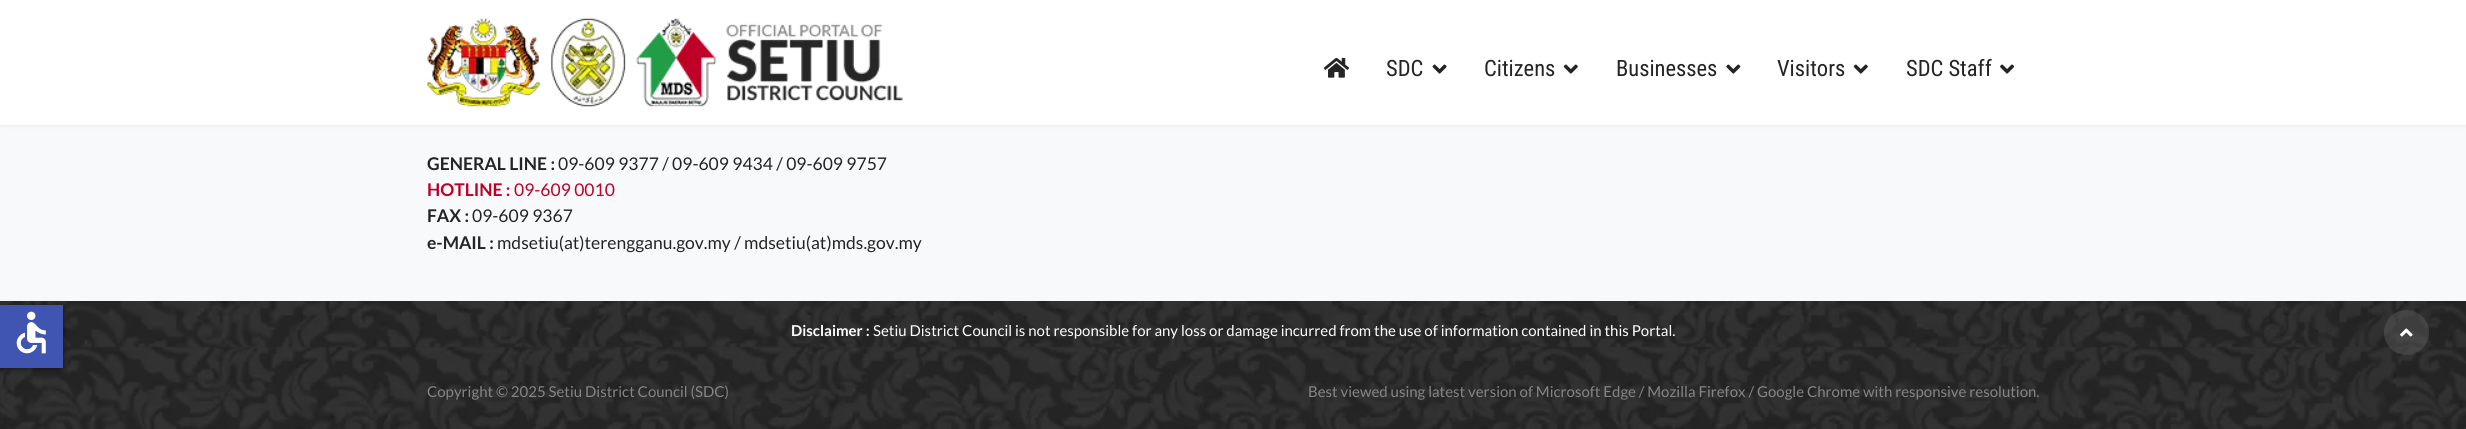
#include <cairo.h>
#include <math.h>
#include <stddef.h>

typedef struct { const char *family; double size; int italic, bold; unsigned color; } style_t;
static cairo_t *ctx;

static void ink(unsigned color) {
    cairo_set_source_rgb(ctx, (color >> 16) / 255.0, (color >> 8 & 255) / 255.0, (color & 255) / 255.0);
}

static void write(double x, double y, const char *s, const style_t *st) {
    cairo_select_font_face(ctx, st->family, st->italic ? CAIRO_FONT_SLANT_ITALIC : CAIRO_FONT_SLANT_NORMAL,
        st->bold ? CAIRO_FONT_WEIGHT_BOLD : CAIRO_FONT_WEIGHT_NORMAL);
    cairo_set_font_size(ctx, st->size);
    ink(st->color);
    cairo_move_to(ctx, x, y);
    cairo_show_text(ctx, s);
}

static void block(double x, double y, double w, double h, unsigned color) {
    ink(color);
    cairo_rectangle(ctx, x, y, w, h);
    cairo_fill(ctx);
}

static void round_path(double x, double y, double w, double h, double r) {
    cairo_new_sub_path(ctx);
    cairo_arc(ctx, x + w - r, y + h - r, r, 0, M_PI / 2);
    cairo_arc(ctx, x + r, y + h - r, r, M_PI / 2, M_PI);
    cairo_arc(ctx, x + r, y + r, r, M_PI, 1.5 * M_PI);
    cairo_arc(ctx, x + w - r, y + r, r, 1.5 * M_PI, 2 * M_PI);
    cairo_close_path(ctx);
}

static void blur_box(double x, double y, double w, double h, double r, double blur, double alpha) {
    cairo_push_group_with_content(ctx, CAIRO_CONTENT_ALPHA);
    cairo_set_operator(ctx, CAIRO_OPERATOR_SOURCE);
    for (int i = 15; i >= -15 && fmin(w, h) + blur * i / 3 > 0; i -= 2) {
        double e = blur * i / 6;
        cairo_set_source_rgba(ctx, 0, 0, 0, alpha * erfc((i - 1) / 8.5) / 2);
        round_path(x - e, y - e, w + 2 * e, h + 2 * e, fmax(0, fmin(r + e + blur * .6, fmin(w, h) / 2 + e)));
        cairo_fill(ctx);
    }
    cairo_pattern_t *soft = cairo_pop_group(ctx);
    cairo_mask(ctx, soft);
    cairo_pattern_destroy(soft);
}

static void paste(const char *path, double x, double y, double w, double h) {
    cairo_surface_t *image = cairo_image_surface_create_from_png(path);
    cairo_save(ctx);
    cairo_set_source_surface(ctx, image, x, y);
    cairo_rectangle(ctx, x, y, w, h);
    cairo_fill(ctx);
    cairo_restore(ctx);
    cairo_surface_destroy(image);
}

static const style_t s1 = {"Roboto Condensed", 22.5, 0, 0, 0x242424};
static const style_t s2 = {"Lato", 17.5, 0, 1, 0x242424};
static const style_t s3 = {"Lato", 17.5, 0, 0, 0x242424};
static const style_t s4 = {"Lato", 17.5, 0, 1, 0xbe0027};
static const style_t s5 = {"Lato", 17.5, 0, 0, 0xbe0027};
static const style_t s6 = {"Lato", 15, 0, 1, 0xffffff};
static const style_t s7 = {"Lato", 15, 0, 0, 0xffffff};
static const style_t s8 = {"Lato", 15, 0, 0, 0x858585};

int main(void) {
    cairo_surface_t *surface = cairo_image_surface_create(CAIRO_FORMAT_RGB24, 2466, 429);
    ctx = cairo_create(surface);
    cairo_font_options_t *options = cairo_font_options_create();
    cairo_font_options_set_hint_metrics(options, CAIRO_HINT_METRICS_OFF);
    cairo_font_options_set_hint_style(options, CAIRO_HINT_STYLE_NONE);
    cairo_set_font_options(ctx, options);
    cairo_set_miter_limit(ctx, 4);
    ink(0xf8f9fa);
    cairo_paint(ctx);
    paste("pic8.png", 0, 301, 2466, 80);
    ink(0x000000);
    blur_box(1, 306, 63, 63, 0, 3, 0.5);
    block(0, 305, 63, 63, 0x4054b2);
    paste("pic1.png", 16, 311, 30, 43);
    ink(0x000000);
    blur_box(0, 0, 2466, 125, 0, 2.5, 0.1);
    block(0, 0, 2466, 125, 0xffffff);
    paste("pic2.png", 427, 18, 476, 89);
    paste("pic3.png", 1323, 58, 26, 20);
    write(1386, 76, "SDC", &s1);
    paste("pic4.png", 1432, 64, 15, 10);
    write(1484, 76, "Citizens", &s1);
    paste("pic5.png", 1563, 64, 15, 10);
    write(1616, 76, "Businesses", &s1);
    paste("pic6.png", 1726, 64, 15, 10);
    write(1777, 76, "Visitors", &s1);
    paste("pic5.png", 1853, 64, 15, 10);
    write(1906, 76, "SDC Staff", &s1);
    paste("pic7.png", 2000, 64, 15, 10);
    write(427, 170, "GENERAL LINE :", &s2);
    write(558, 170, "09-609 9377 / 09-609 9434 / 09-609 9757", &s3);
    write(427, 196, "HOTLINE :", &s4);
    write(514, 196, "09-609 0010", &s5);
    write(427, 222, "FAX :", &s2);
    write(472, 222, "09-609 9367", &s3);
    write(427, 249, "e-MAIL :", &s2);
    write(497, 249, "mdsetiu(at)terengganu.gov.my / mdsetiu(at)mds.gov.my", &s3);
    write(791, 336, "Disclaimer :", &s6);
    write(873, 336, "Setiu District Council is not responsible for any loss or damage incurred from the use of information contained in this Portal.", &s7);
    paste("pic9.png", 0, 381, 2466, 48);
    write(427, 397, "Copyright © 2025 Setiu District Council (SDC)", &s8);
    write(1308, 397, "Best viewed using latest version of Microsoft Edge / Mozilla Firefox / Google Chrome with responsive resolution.", &s8);
    cairo_set_source_rgba(ctx, 0.392, 0.392, 0.392, 0.4);
    cairo_new_path(ctx);
    cairo_arc(ctx, 2406.5, 332.5, 22.5, 0, 2 * M_PI);
    cairo_fill(ctx);
    paste("pic10.png", 2400, 328, 13, 9);
    cairo_surface_write_to_png(surface, "screenshot.png");
    cairo_font_options_destroy(options);
    cairo_destroy(ctx);
    cairo_surface_destroy(surface);
    return 0;
}
